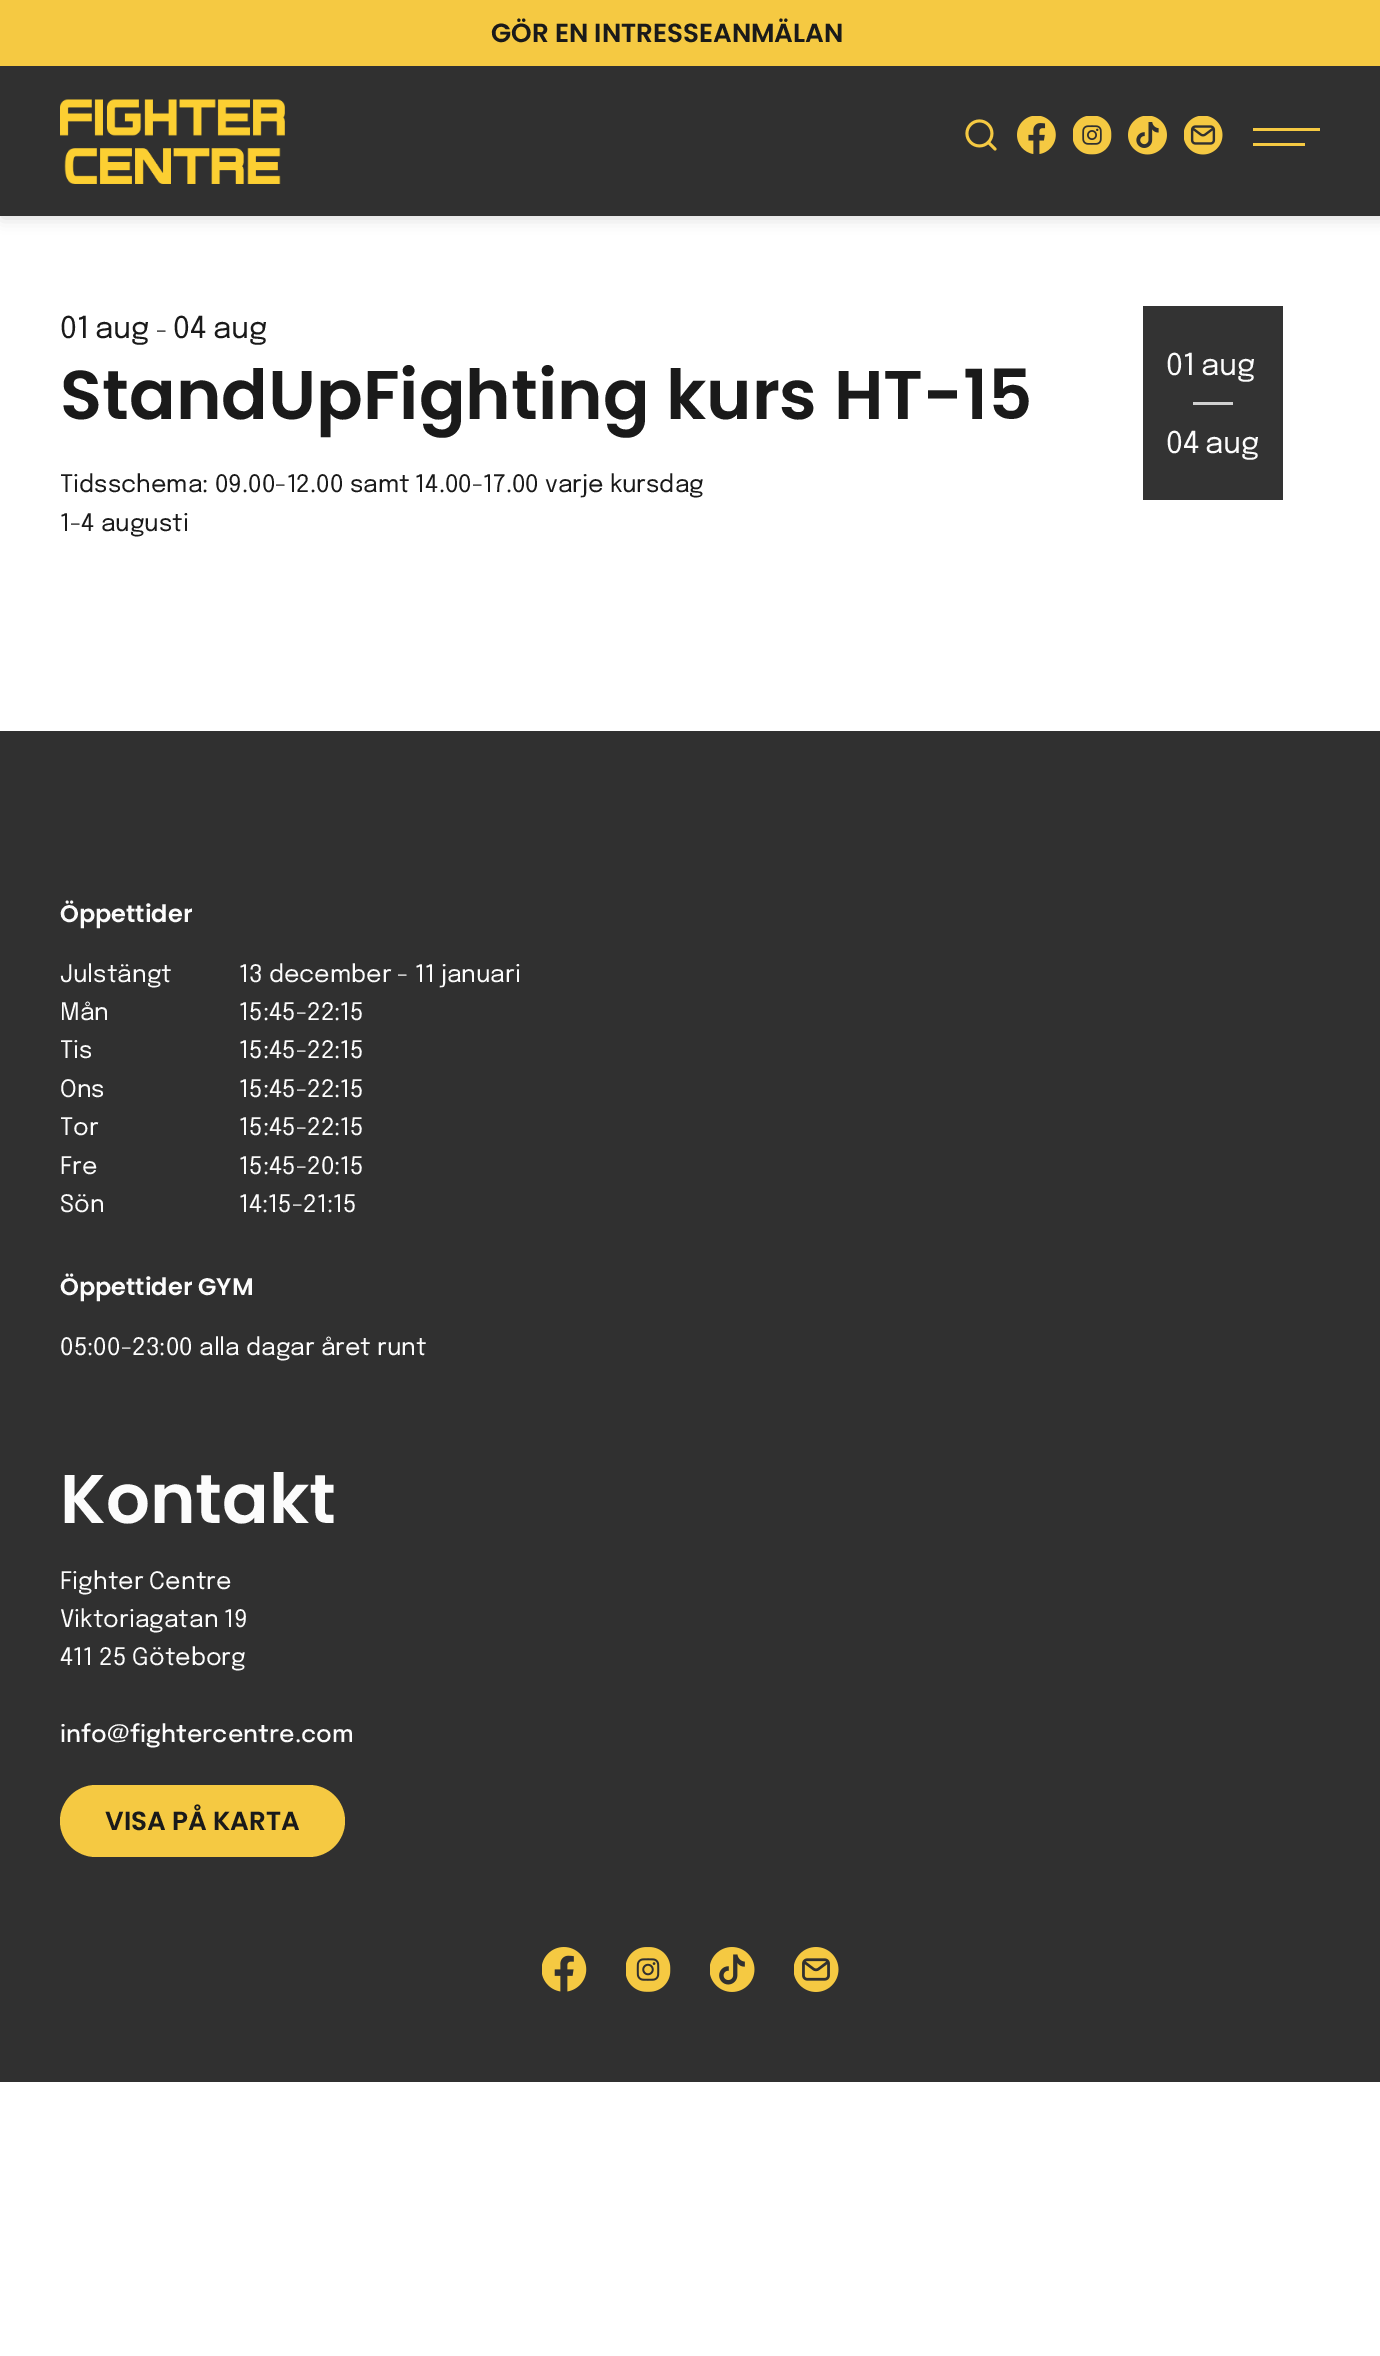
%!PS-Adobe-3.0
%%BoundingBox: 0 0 1380 2356
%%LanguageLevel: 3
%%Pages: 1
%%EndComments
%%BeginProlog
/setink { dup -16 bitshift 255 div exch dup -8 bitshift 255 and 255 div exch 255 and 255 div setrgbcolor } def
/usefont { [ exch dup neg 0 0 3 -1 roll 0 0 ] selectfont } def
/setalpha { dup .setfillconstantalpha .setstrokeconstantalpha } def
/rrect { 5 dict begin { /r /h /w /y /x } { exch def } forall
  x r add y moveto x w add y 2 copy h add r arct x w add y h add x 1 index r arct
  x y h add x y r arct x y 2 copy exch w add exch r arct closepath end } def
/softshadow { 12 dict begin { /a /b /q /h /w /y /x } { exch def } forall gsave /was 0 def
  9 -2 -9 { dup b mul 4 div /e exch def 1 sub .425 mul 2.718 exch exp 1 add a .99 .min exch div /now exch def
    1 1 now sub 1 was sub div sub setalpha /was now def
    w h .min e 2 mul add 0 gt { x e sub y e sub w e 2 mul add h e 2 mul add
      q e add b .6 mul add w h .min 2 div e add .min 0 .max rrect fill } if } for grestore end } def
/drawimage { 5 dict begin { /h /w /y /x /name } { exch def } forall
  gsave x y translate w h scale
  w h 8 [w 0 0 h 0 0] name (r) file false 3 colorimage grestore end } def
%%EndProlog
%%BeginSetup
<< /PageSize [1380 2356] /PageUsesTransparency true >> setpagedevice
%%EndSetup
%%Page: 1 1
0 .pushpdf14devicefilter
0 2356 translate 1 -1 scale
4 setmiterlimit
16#FFFFFF setink
0 0 1380 2356 rectfill
16#000000 setink
2 2 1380 216 0 7.5 0.15 softshadow
16#303030 setink
0 66 1380 150 rectfill
16#F5C942 setink
0 0 1380 66 rectfill
/Poppins-SemiBold 26.25 usefont
16#1A1A1A setink
491 42 moveto (GÖR EN INTRESSEANMÄLAN) show
(img1.raw) 60 99 225 85 drawimage
(img2.raw) 965 119 32 32 drawimage
(img3.raw) 1017 116 39 38 drawimage
(img4.raw) 1073 116 39 39 drawimage
(img5.raw) 1128 116 39 39 drawimage
(img6.raw) 1184 116 39 39 drawimage
16#F5C942 setink
1253 128 67 3 rectfill
1253 143 52 3 rectfill
/Epilogue-Regular 30 usefont
16#1A1A1A setink
60 338 moveto (01) show
95 338 moveto (aug) show
/Epilogue-Regular 24 usefont
156 338 moveto (-) show
/Epilogue-Regular 30 usefont
173 338 moveto (04) show
213 338 moveto (aug) show
/Poppins-SemiBold 69 usefont
60 419 moveto (StandUpFighting kurs HT-15) show
16#333333 setink
1143 306 140 194 rectfill
/Epilogue-Regular 30 usefont
16#FCFCFC setink
1166 375 moveto (01) show
1201 375 moveto (aug) show
16#D1D1D1 setink
1193 402 40 3 rectfill
16#FCFCFC setink
1166 453 moveto (04) show
1205 453 moveto (aug) show
/Epilogue-Regular 24 usefont
16#1A1A1A setink
60 492 moveto (Tidsschema: 09.00-12.00 samt 14.00-17.00 varje kursdag) show
60 531 moveto (1-4 augusti) show
16#303030 setink
0 731 1380 1351 rectfill
/Poppins-SemiBold 24 usefont
16#FCFCFC setink
60 922 moveto (Öppettider) show
/Epilogue-Regular 24 usefont
[
    [(Julstängt) 60 982]
    [(13 december - 11 januari) 239 982]
    [(Mån) 60 1020]
    [(15:45-22:15) 239 1020]
    [(Tis) 60 1058]
    [(15:45-22:15) 239 1058]
    [(Ons) 60 1097]
    [(15:45-22:15) 239 1097]
    [(Tor) 60 1135]
    [(15:45-22:15) 239 1135]
    [(Fre) 60 1174]
    [(15:45-20:15) 239 1174]
    [(Sön) 60 1212]
    [(14:15-21:15) 239 1212]
] { aload pop moveto show } forall
/Poppins-SemiBold 24 usefont
60 1295 moveto (Öppettider GYM) show
/Epilogue-Regular 24 usefont
60 1355 moveto (05:00-23:00 alla dagar året runt) show
/Poppins-SemiBold 69 usefont
60 1523 moveto (Kontakt) show
/Epilogue-Regular 24 usefont
[
    [(Fighter Centre) 60 1589]
    [(Viktoriagatan 19) 60 1627]
    [(411 25 Göteborg) 60 1665]
] { aload pop moveto show } forall
/Epilogue-Medium 24 usefont
60 1742 moveto (info@fightercentre.com) show
16#F5C942 setink
60 1785 285 72 36 rrect fill
/Poppins-SemiBold 26.25 usefont
16#1A1A1A setink
105 1830 moveto (VISA PÅ KARTA) show
(img7.raw) 542 1947 45 45 drawimage
(img8.raw) 626 1947 45 45 drawimage
(img9.raw) 710 1947 45 45 drawimage
(img10.raw) 794 1947 45 45 drawimage
.poppdf14devicefilter showpage
%%EOF
